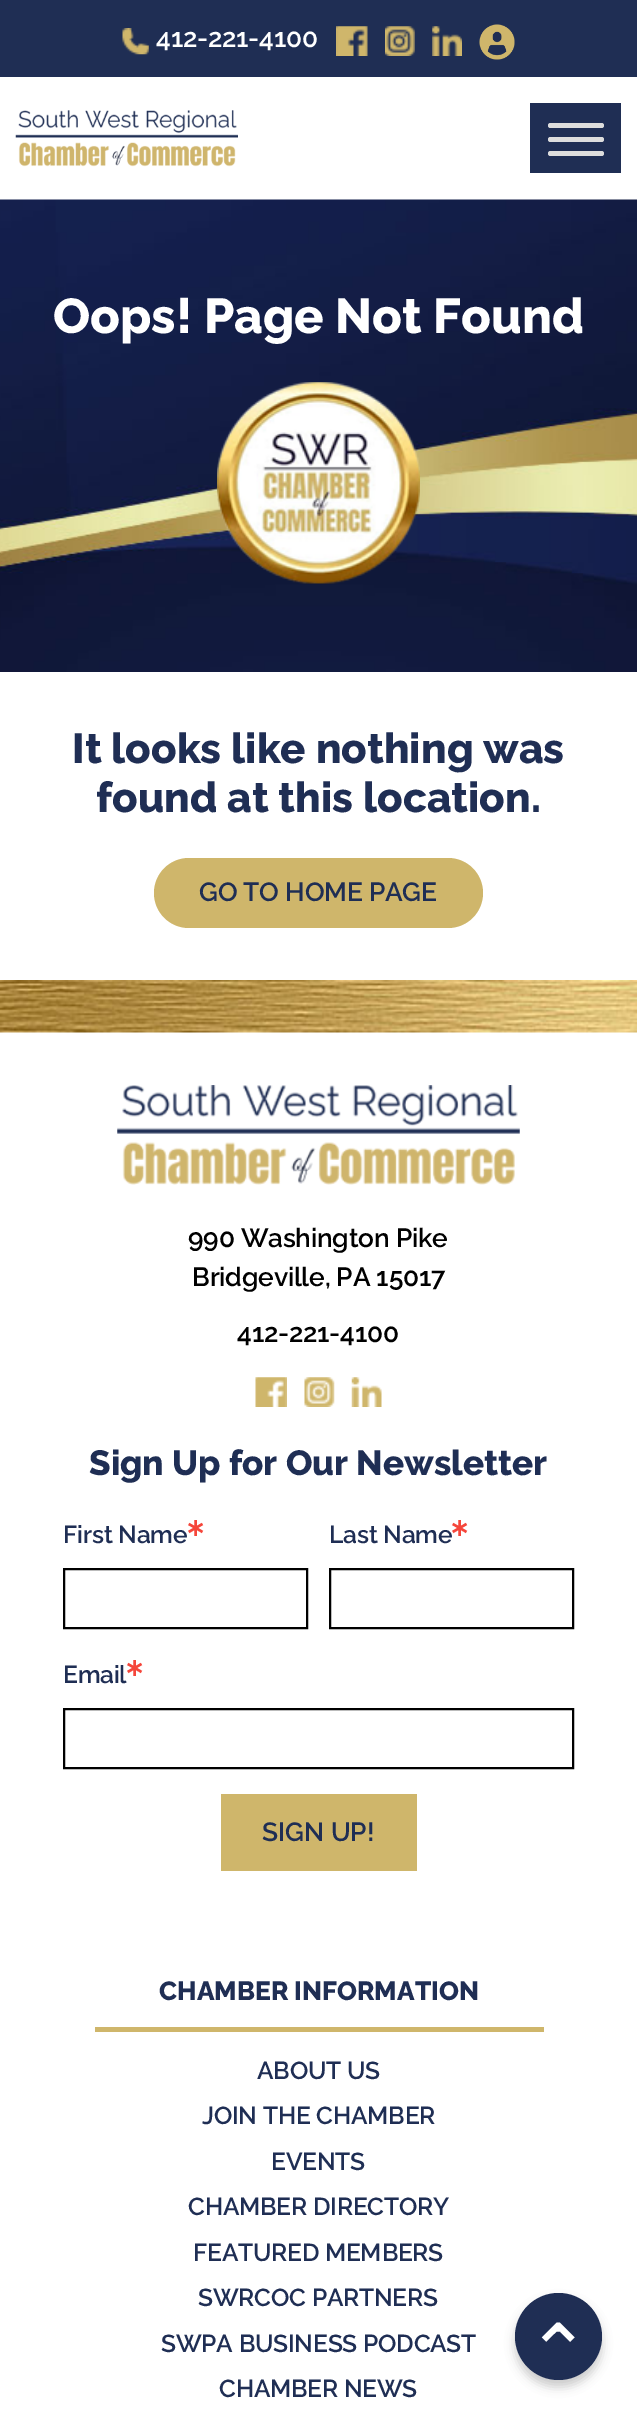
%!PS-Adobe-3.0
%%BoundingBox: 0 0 637 2415
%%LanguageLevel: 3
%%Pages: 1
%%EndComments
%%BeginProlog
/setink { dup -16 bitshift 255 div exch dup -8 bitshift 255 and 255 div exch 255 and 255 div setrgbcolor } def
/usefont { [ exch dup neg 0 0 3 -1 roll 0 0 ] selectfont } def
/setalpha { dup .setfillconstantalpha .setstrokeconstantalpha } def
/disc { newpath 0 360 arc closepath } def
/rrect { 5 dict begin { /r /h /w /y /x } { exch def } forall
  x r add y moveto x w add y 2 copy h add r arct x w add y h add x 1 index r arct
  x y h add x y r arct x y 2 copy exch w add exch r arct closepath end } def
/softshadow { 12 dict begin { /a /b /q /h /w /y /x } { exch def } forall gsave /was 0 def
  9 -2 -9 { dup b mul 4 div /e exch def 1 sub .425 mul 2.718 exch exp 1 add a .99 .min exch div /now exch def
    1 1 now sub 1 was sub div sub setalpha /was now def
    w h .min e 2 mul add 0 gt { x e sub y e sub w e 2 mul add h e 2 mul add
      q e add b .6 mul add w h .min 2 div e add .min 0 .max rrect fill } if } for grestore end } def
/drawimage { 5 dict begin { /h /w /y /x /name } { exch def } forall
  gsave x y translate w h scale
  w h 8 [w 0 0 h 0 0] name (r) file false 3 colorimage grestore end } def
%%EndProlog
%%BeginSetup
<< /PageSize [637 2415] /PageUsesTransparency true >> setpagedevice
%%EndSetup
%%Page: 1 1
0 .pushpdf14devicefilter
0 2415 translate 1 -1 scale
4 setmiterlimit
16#FFFFFF setink
0 0 637 2415 rectfill
16#1F2E54 setink
0 0 637 77 rectfill
(img1.raw) 122 28 27 27 drawimage
/Raleway-SemiBold 26.25 usefont
16#FFFFFF setink
156 47 moveto -0.2 0 (412-221-4100) ashow
(img2.raw) 336 26 32 30 drawimage
(img3.raw) 385 26 30 30 drawimage
(img4.raw) 432 26 30 30 drawimage
(img5.raw) 479 24 36 36 drawimage
(img6.raw) 15 110 223 57 drawimage
16#1F2E54 setink
530 103 91 70 rectfill
16#DDDDDD setink
548 123 56 5 2.5 rrect fill
548 137 56 5 2.5 rrect fill
548 151 56 5 2.5 rrect fill
16#000000 setink
515 2300 87 87 43.5 5 0.2 softshadow
16#1F2E54 setink
558.5 2336.5 43.5 disc fill
/DejaVuSans-Regular 77 usefont
16#FFFFFF setink
526 2379 moveto (⌃) show
(img7.raw) 0 199 637 473 drawimage
/Raleway-ExtraBold 49 usefont
53 333 moveto (Oops! Page Not Found) show
(img8.raw) 217 382 203 202 drawimage
/Raleway-ExtraBold 42 usefont
16#1F2E54 setink
72 763 moveto (It looks like nothing was) show
96 812 moveto (found at this location.) show
16#CFB66B setink
154 858 329 70 35 rrect fill
/Raleway-SemiBold 26.25 usefont
16#1F2E54 setink
199 901 moveto -0.2 0 (GO TO HOME PAGE) ashow
(img9.raw) 0 980 637 53 drawimage
(img10.raw) 117 1085 403 100 drawimage
16#000000 setink
188 1247 moveto -0.2 0 (990 Washington Pike) ashow
192 1286 moveto -0.2 0 (Bridgeville, PA 15017) ashow
237 1342 moveto -0.2 0 (412-221-4100) ashow
(img11.raw) 255 1377 32 30 drawimage
(img12.raw) 304 1377 31 30 drawimage
(img13.raw) 351 1377 31 30 drawimage
/Raleway-ExtraBold 35 usefont
16#1F2E54 setink
89 1475 moveto (Sign Up for Our Newsletter) show
/Raleway-SemiBold 24.5 usefont
63 1543 moveto -0.2 0 (First Name) ashow
/DejaVuSans-Bold 24.5 usefont
16#F5463B setink
185 1536 moveto -0.2 0 (∗) ashow
16#000000 setink
2 setlinewidth
64 1569 243 59 rectstroke
/Raleway-SemiBold 24.5 usefont
16#1F2E54 setink
329 1543 moveto -0.2 0 (Last Name) ashow
/DejaVuSans-Bold 24.5 usefont
16#F5463B setink
449 1536 moveto -0.2 0 (∗) ashow
16#000000 setink
330 1569 243 59 rectstroke
/Raleway-SemiBold 24.5 usefont
16#1F2E54 setink
63 1683 moveto -0.2 0 (Email) ashow
/DejaVuSans-Bold 24.5 usefont
16#F5463B setink
124 1676 moveto -0.2 0 (∗) ashow
16#000000 setink
64 1709 509 59 rectstroke
16#CFB66B setink
221 1794 196 77 rectfill
/Raleway-SemiBold 26.25 usefont
16#1F2E54 setink
262 1841 moveto (SIGN UP!) show
16#CFB66B setink
95 2027 449 5 rectfill
/Raleway-ExtraBold 26.25 usefont
16#1F2E54 setink
159 2000 moveto (CHAMBER INFORMATION) show
/Raleway-SemiBold 24.5 usefont
257 2079 moveto -0.2 0 (ABOUT US) ashow
202 2124 moveto -0.2 0 (JOIN THE CHAMBER) ashow
271 2170 moveto -0.2 0 (EVENTS) ashow
188 2215 moveto -0.2 0 (CHAMBER DIRECTORY) ashow
193 2261 moveto -0.2 0 (FEATURED MEMBERS) ashow
198 2306 moveto -0.2 0 (SWRCOC PARTNERS) ashow
161 2352 moveto -0.2 0 (SWPA BUSINESS PODCAST) ashow
219 2397 moveto -0.2 0 (CHAMBER NEWS) ashow
.poppdf14devicefilter showpage
%%EOF
